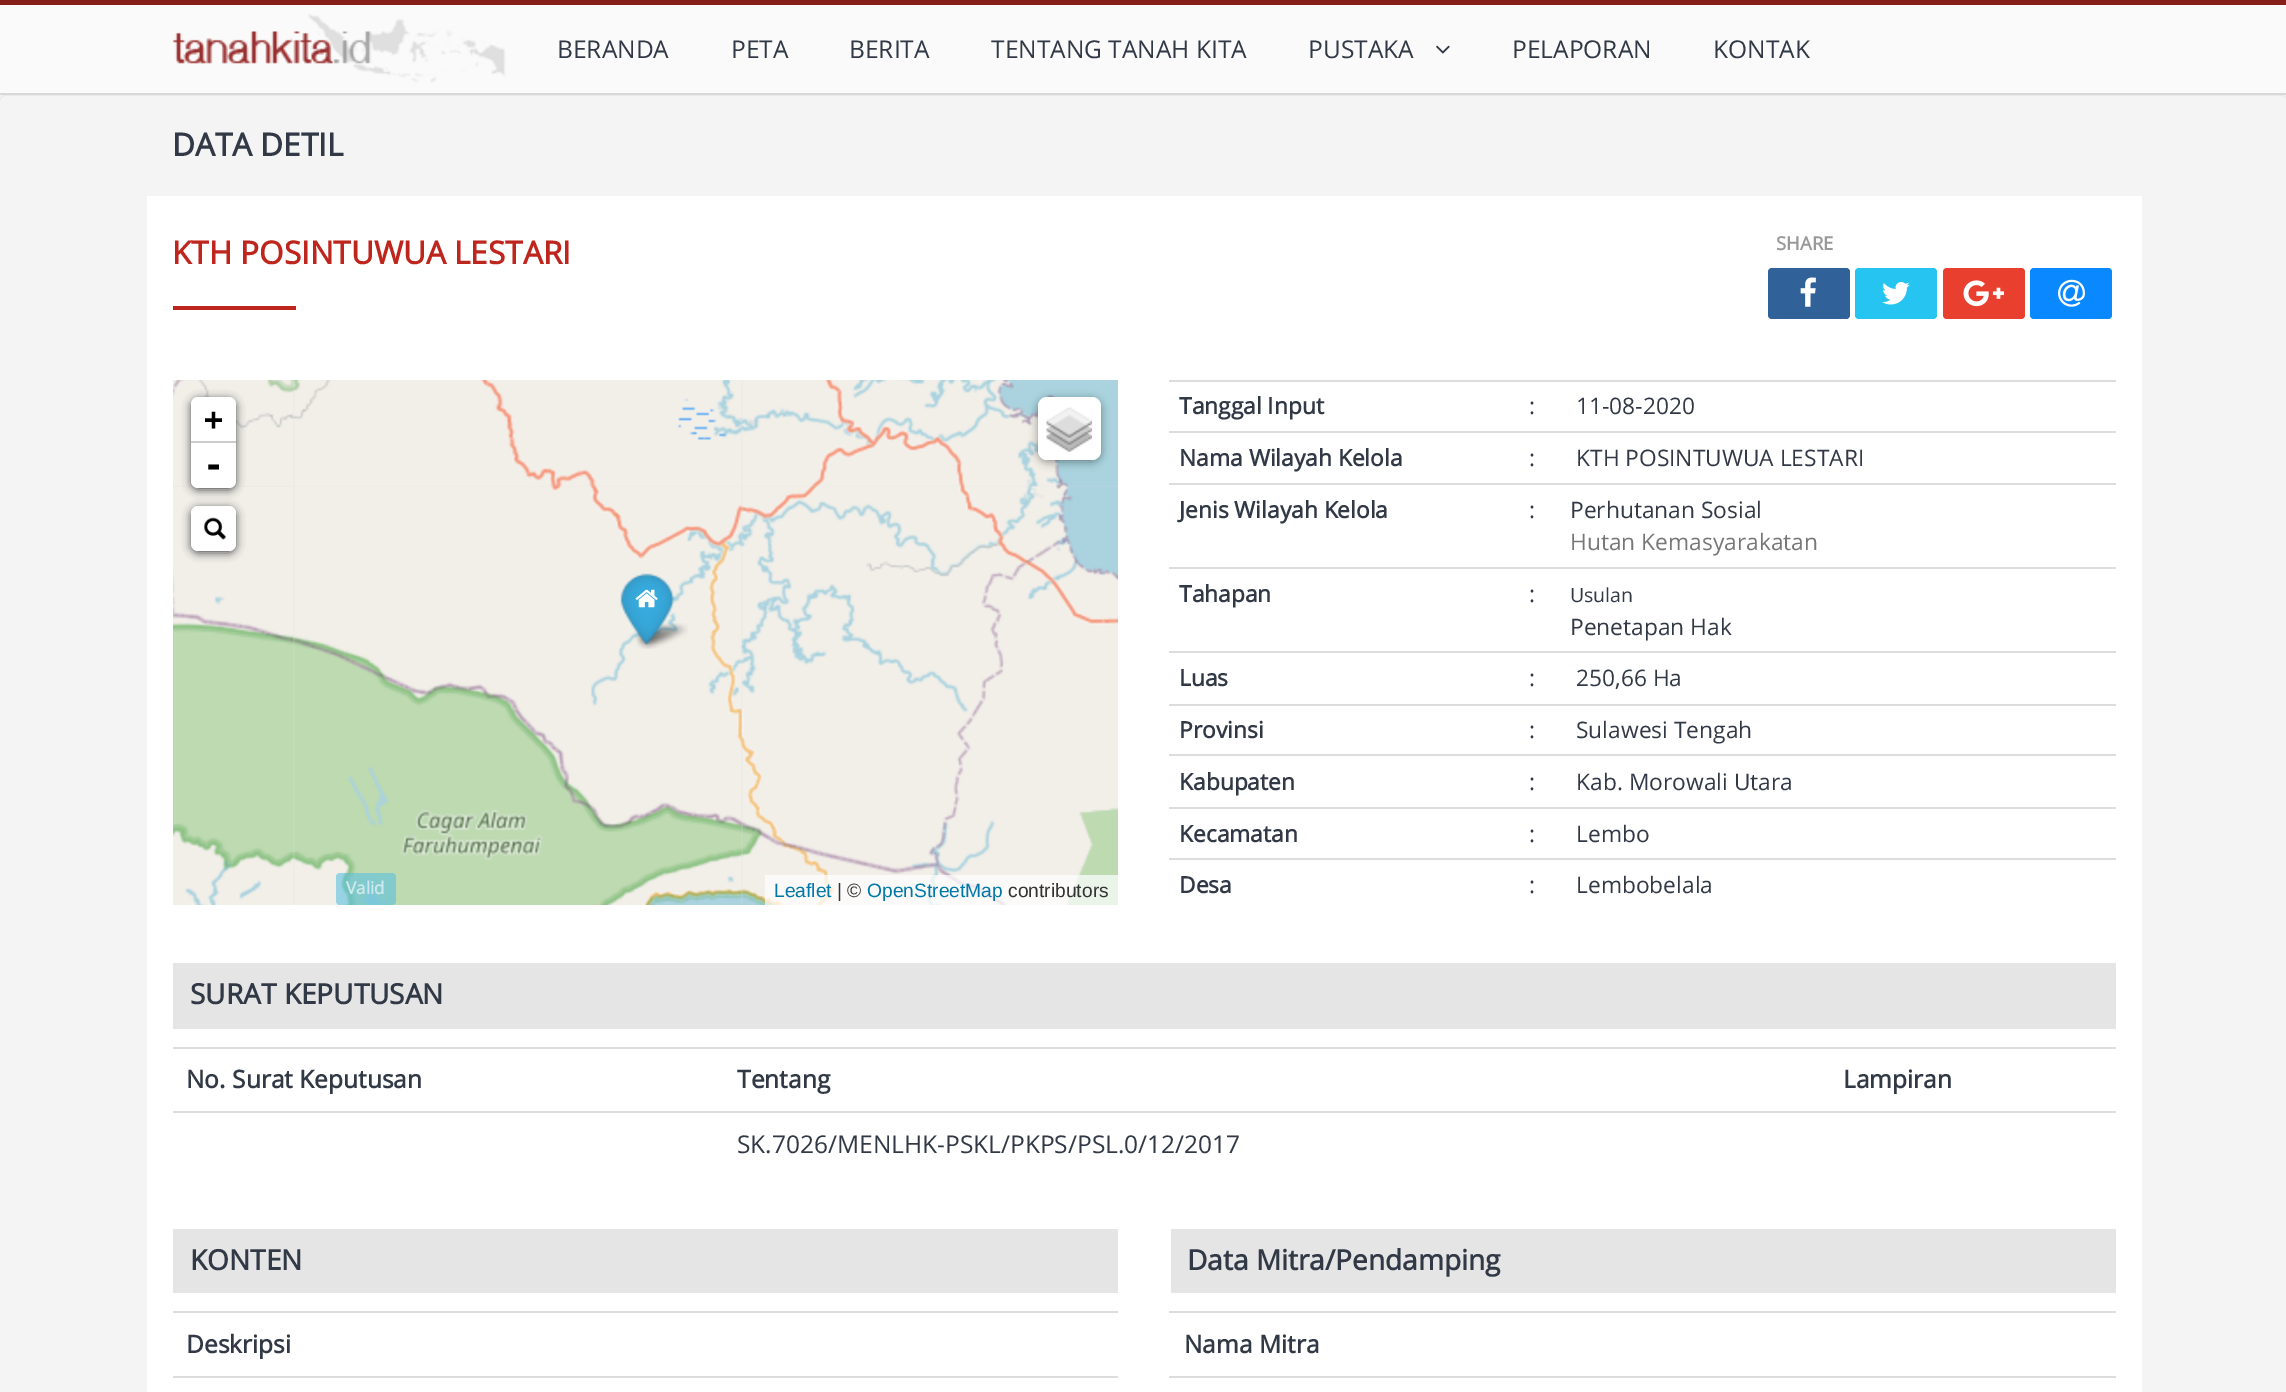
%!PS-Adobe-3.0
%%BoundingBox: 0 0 2286 1392
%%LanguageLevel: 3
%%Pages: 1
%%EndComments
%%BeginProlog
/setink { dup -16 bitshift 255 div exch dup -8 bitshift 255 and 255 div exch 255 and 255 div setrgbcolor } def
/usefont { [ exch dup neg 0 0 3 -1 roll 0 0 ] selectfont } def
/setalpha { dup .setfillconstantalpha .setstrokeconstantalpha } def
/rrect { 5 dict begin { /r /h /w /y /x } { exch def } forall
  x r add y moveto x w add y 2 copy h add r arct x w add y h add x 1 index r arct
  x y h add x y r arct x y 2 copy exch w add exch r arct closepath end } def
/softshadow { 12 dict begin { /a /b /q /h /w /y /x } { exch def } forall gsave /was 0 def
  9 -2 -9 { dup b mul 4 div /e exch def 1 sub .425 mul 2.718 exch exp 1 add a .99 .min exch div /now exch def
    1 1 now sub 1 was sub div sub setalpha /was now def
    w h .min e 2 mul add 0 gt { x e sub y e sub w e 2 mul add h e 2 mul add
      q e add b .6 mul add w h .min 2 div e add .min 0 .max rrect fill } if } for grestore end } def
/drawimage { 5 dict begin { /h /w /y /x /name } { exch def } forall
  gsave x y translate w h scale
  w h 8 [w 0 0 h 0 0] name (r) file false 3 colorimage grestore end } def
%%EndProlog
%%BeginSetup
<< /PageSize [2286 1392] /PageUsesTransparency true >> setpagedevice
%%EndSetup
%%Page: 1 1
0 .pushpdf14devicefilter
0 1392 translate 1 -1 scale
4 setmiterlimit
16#F4F4F4 setink
0 0 2286 1392 rectfill
[
    [0 5 2286 88 16#FAFAFA]
    [0 0 2286 5 16#861E19]
    [0 93 2286 2 16#D8D8D8]
] { aload pop setink rectfill } forall
(img1.raw) 172 14 334 69 drawimage
/OpenSans-Regular 24.5 usefont
16#323946 setink
[
    [(BERANDA) 557 58]
    [(PETA) 731 58]
    [(BERITA) 849 58]
    [(TENTANG TANAH KITA) 991 58]
    [(PUSTAKA) 1308 58]
] { aload pop moveto show } forall
(img2.raw) 1436 45 14 9 drawimage
1512 58 moveto (PELAPORAN) show
1713 58 moveto (KONTAK) show
16#E9E9E9 setink
5 96 moveto 2282 96 lineto 2285 96 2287 99 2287 102 curveto 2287 100 lineto 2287 97 2285 95 2282 95 curveto 5 95 lineto 2 95 0 97 0 100 curveto 0 102 lineto 0 99 2 96 5 96 curveto closepath fill
/OpenSans-Bold 31.5 usefont
16#323946 setink
172 156 moveto (DATA DETIL) show
16#FFFFFF setink
147 196 1995 1196 rectfill
16#BE251C setink
172 264 moveto (KTH POSINTUWUA LESTARI) show
173 306 123 4 rectfill
/OpenSans-Bold 18.5 usefont
16#999999 setink
1776 250 moveto (SHARE) show
16#306199 setink
1768 268 82 51 4 rrect fill
(img3.raw) 1800 277 16 30 drawimage
16#26C4F1 setink
1855 268 82 51 4 rrect fill
(img4.raw) 1882 282 28 23 drawimage
16#E93F2E setink
1943 268 82 51 4 rrect fill
(img5.raw) 1963 280 41 27 drawimage
16#0A88FF setink
2030 268 82 51 4 rrect fill
(img6.raw) 2058 279 27 28 drawimage
16#DDDDDD setink
173 380 945 525 rectfill
(img8.raw) 293 380 449 107 drawimage
(img11.raw) 293 485 449 420 drawimage
(img7.raw) 173 380 121 107 drawimage
(img9.raw) 741 380 377 107 drawimage
(img10.raw) 173 487 121 418 drawimage
(img12.raw) 741 485 377 420 drawimage
(img15.raw) 635 623 53 26 drawimage
(img13.raw) 620 573 55 72 drawimage
(img14.raw) 635 589 23 19 drawimage
16#000000 setink
191 399 45 91 7 4.5 0.65 softshadow
16#FFFFFF setink
198 397 moveto 229 397 lineto 233 397 236 400 236 404 curveto 236 443 lineto 191 443 lineto 191 404 lineto 191 400 194 397 198 397 curveto closepath fill
16#CCCCCC setink
191 441 45 2 rectfill
/DejaVuSansMono-Bold 31.5 usefont
16#000000 setink
204 430 moveto (+) show
16#FFFFFF setink
191 443 moveto 236 443 lineto 236 481 lineto 236 485 233 488 229 488 curveto 198 488 lineto 194 488 191 485 191 481 curveto closepath fill
/DejaVuSansMono-Bold 35 usefont
16#000000 setink
203 477 moveto (-) show
191 508 45 45 7 4.5 0.65 softshadow
16#FFFFFF setink
191 506 45 45 7 rrect fill
(img16.raw) 203 517 24 23 drawimage
16#000000 setink
1038 399 63 63 9 4.5 0.4 softshadow
16#FFFFFF setink
1038 397 63 63 9 rrect fill
(img17.raw) 1046 407 46 45 drawimage
0.7 setalpha
765 875 353 30 rectfill
/LiberationSans-Regular 19.25 usefont
1 setalpha
16#0078A8 setink
774 897 moveto (Leaflet) show
16#333333 setink
837 897 moveto (| ©) show
16#0078A8 setink
867 897 moveto (OpenStreetMap) show
16#333333 setink
1008 897 moveto (contributors) show
0.6 setalpha
16#5BC0DE setink
336 873 60 32 4 rrect fill
/OpenSans-Bold 17 usefont
1 setalpha
16#CCE9EB setink
346 894 moveto (Valid) show
/OpenSans-Bold 22.75 usefont
16#323946 setink
1179 414 moveto (Tanggal Input) show
/OpenSans-Regular 22.75 usefont
1529 414 moveto (:) show
16#DDDDDD setink
1169 380 947 2 rectfill
16#323946 setink
1576 414 moveto (11-08-2020) show
/OpenSans-Bold 22.75 usefont
1179 466 moveto (Nama Wilayah Kelola) show
/OpenSans-Regular 22.75 usefont
1529 466 moveto (:) show
16#DDDDDD setink
1169 431 947 2 rectfill
16#323946 setink
1576 466 moveto (KTH POSINTUWUA LESTARI) show
/OpenSans-Bold 22.75 usefont
1179 518 moveto (Jenis Wilayah Kelola) show
/OpenSans-Regular 22.75 usefont
1529 518 moveto (:) show
16#DDDDDD setink
1169 483 947 2 rectfill
16#323946 setink
1570 518 moveto (Perhutanan Sosial) show
16#777777 setink
1570 550 moveto (Hutan Kemasyarakatan) show
/OpenSans-Bold 22.75 usefont
16#323946 setink
1179 602 moveto (Tahapan) show
/OpenSans-Regular 22.75 usefont
1529 602 moveto (:) show
16#DDDDDD setink
1169 567 947 2 rectfill
/OpenSans-Regular 19.5 usefont
16#323946 setink
1570 602 moveto (Usulan) show
/OpenSans-Regular 22.75 usefont
1570 635 moveto (Penetapan Hak) show
/OpenSans-Bold 22.75 usefont
1179 686 moveto (Luas) show
/OpenSans-Regular 22.75 usefont
1529 686 moveto (:) show
16#DDDDDD setink
1169 651 947 2 rectfill
16#323946 setink
1576 686 moveto (250,66 Ha) show
/OpenSans-Bold 22.75 usefont
1179 738 moveto (Provinsi) show
/OpenSans-Regular 22.75 usefont
1529 738 moveto (:) show
16#DDDDDD setink
1169 704 947 2 rectfill
16#323946 setink
1576 738 moveto (Sulawesi Tengah) show
/OpenSans-Bold 22.75 usefont
1179 790 moveto (Kabupaten) show
/OpenSans-Regular 22.75 usefont
1529 790 moveto (:) show
16#DDDDDD setink
1169 754 947 2 rectfill
16#323946 setink
1576 790 moveto (Kab. Morowali Utara) show
/OpenSans-Bold 22.75 usefont
1179 842 moveto (Kecamatan) show
/OpenSans-Regular 22.75 usefont
1529 842 moveto (:) show
16#DDDDDD setink
1169 807 947 2 rectfill
16#323946 setink
1576 842 moveto (Lembo) show
/OpenSans-Bold 22.75 usefont
1179 893 moveto (Desa) show
/OpenSans-Regular 22.75 usefont
1529 893 moveto (:) show
16#DDDDDD setink
1169 858 947 2 rectfill
16#323946 setink
1576 893 moveto (Lembobelala) show
16#E5E5E5 setink
173 963 1943 66 rectfill
/OpenSans-Bold 28 usefont
16#323946 setink
190 1004 moveto (SURAT KEPUTUSAN) show
/OpenSans-Bold 24.5 usefont
186 1088 moveto (No. Surat Keputusan) show
737 1088 moveto (Tentang) show
16#DDDDDD setink
173 1047 1943 2 rectfill
16#323946 setink
1843 1088 moveto (Lampiran) show
16#DDDDDD setink
173 1111 1943 2 rectfill
/OpenSans-Regular 24.5 usefont
16#323946 setink
737 1153 moveto (SK.7026/MENLHK-PSKL/PKPS/PSL.0/12/2017) show
16#E5E5E5 setink
173 1229 945 64 rectfill
/OpenSans-Bold 28 usefont
16#323946 setink
190 1270 moveto (KONTEN) show
16#DDDDDD setink
173 1311 945 2 rectfill
/OpenSans-Bold 24.5 usefont
16#323946 setink
186 1353 moveto (Deskripsi) show
16#DDDDDD setink
173 1376 945 2 rectfill
16#E5E5E5 setink
1171 1229 945 64 rectfill
/OpenSans-Bold 28 usefont
16#323946 setink
1187 1270 moveto (Data Mitra/Pendamping) show
16#DDDDDD setink
1169 1311 947 2 rectfill
/OpenSans-Bold 24.5 usefont
16#323946 setink
1184 1353 moveto (Nama Mitra) show
16#DDDDDD setink
1169 1376 947 2 rectfill
.poppdf14devicefilter showpage
%%EOF
